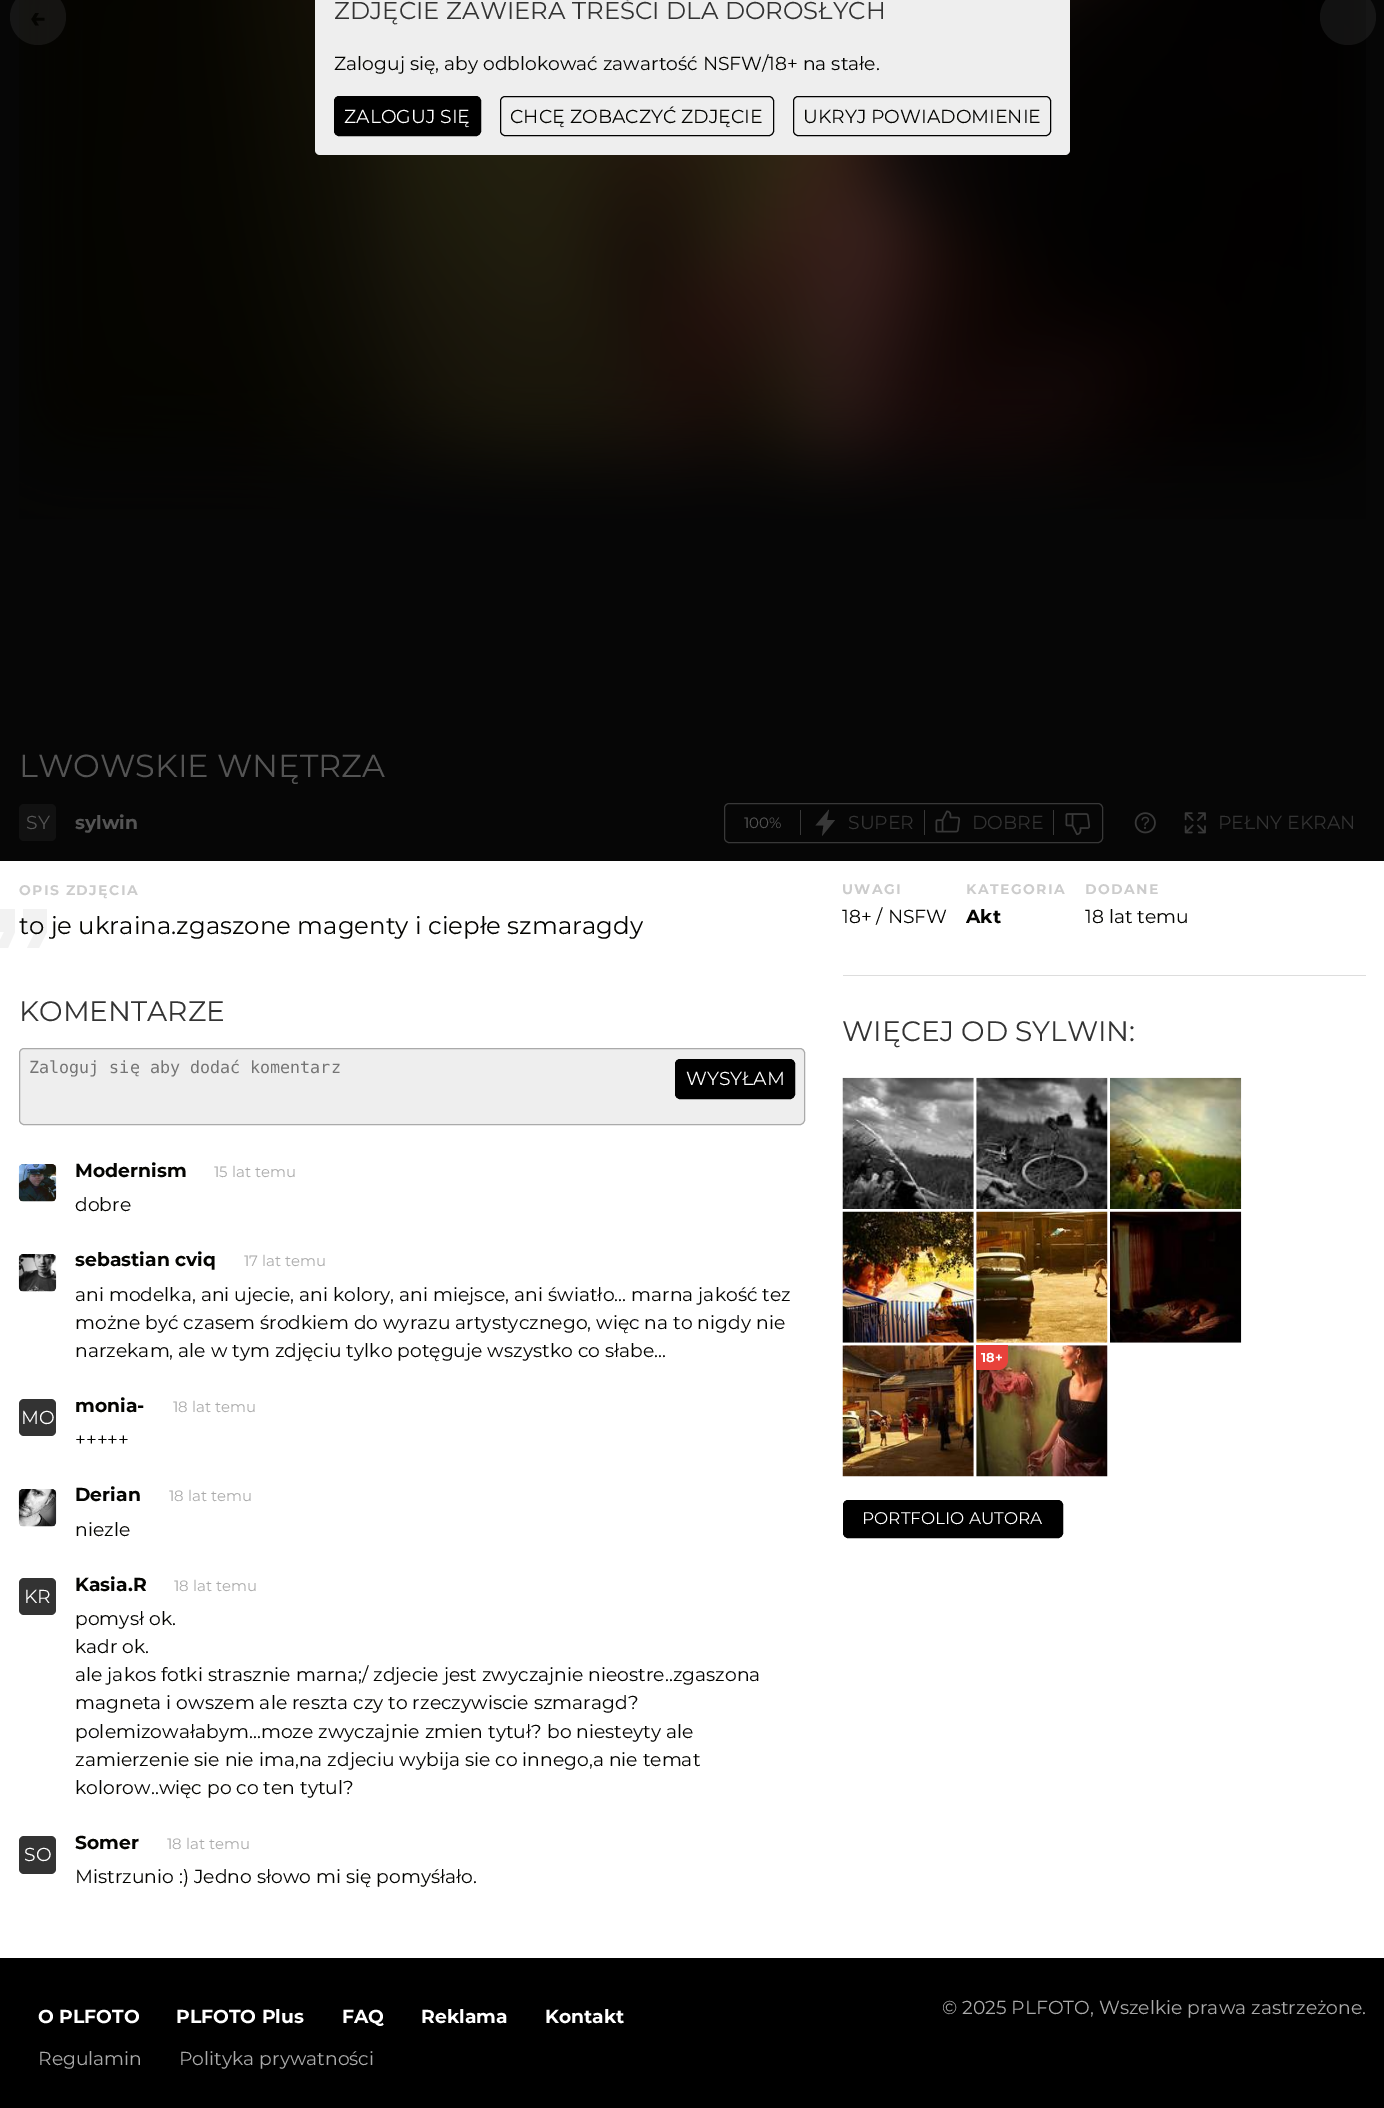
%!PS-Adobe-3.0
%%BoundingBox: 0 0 1384 2108
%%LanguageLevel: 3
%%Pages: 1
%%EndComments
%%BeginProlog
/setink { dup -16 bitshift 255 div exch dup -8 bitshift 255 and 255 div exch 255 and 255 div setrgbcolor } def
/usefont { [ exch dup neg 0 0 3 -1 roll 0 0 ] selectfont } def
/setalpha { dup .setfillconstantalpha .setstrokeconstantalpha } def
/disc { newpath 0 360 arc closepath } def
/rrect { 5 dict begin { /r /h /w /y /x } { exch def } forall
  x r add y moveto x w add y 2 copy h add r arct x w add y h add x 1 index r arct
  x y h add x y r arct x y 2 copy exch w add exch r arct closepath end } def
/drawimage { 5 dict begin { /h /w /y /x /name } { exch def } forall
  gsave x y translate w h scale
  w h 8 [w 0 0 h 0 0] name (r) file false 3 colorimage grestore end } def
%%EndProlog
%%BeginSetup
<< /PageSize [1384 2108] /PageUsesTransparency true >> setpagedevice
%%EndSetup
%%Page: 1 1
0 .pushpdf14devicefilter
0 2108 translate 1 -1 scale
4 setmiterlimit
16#FFFFFF setink
0 0 1384 2108 rectfill
16#060606 setink
0 0 1384 861 rectfill
(img1.raw) 19 0 1347 519 drawimage
0.2 setalpha
16#545454 setink
1348 17 28 disc fill
38 17 28 disc fill
/Montserrat-Bold 28.1 usefont
1 setalpha
16#040401 setink
29 27 moveto (←) show
16#EEEEEE setink
315 -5 755 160 5 rrect fill
/Montserrat-Regular 24.4 usefont
16#333333 setink
334 19 moveto (ZDJĘCIE ZAWIERA TREŚCI DLA DOROSŁYCH) show
/Montserrat-Regular 18.75 usefont
16#040401 setink
334 70 moveto (Zaloguj się, aby odblokować zawartość NSFW/18+ na stałe.) show
16#000000 setink
334.5 96.5 146 39 4.5 rrect gsave fill grestore
stroke
16#FFFFFF setink
344 123 moveto (ZALOGUJ SIĘ) show
16#000000 setink
500.5 96.5 273 39 4.5 rrect stroke
16#040401 setink
510 123 moveto (CHCĘ ZOBACZYĆ ZDJĘCIE) show
16#000000 setink
793.5 96.5 257 39 4.5 rrect stroke
16#040401 setink
803 123 moveto (UKRYJ POWIADOMIENIE) show
/Montserrat-Regular 31.9 usefont
16#545454 setink
19 777 moveto (LWOWSKIE WNĘTRZA) show
16#111111 setink
19 804 37 37 5 rrect fill
/Montserrat-Regular 18.75 usefont
16#545454 setink
26 829 moveto (SY) show
/Montserrat-Bold 18.75 usefont
75 829 moveto (sylwin) show
16#383838 setink
724.5 803.5 378 39 4.5 rrect stroke
/Montserrat-Regular 15 usefont
16#545454 setink
744 828 moveto (100%) show
16#383838 setink
800 810 1 25 rectfill
835 820 moveto 827 820 lineto 829 809.5 lineto 815.5 825.5 lineto 823.5 825.5 lineto 822 836 lineto closepath fill
/Montserrat-Regular 18.75 usefont
16#333333 setink
848 829 moveto (SUPER) show
16#383838 setink
924 810 1 25 rectfill
(img2.raw) 935 810 26 23 drawimage
16#333333 setink
972 829 moveto (DOBRE) show
16#383838 setink
1053 810 1 25 rectfill
(img3.raw) 1065 813 26 23 drawimage
(img4.raw) 1134 812 22 22 drawimage
(img5.raw) 1184 812 22 22 drawimage
16#333333 setink
1218 829 moveto (PEŁNY EKRAN) show
/Montserrat-Bold 14 usefont
16#CCCCCC setink
19 895 moveto 1.4 0 (OPIS ZDJĘCIA) ashow
0.05 setalpha
16#000000 setink
-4 948 moveto 8 948 lineto 15 932 lineto 15 909 lineto -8 909 lineto -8 932 lineto 4 932 lineto closepath 27 948 moveto 39 948 lineto 47 932 lineto 47 909 lineto 23 909 lineto 23 932 lineto 35 932 lineto closepath fill
/Montserrat-Regular 24.4 usefont
1 setalpha
16#040401 setink
19 934 moveto (to je ukraina.zgaszone magenty i ciepłe szmaragdy) show
/Montserrat-Regular 28.1 usefont
16#333333 setink
19 1021 moveto (KOMENTARZE) show
16#EEEEEE setink
19.5 1048.5 785 76 4.5 rrect gsave fill grestore
16#AAAAAA setink
stroke
/DejaVuSansMono-Regular 16.7 usefont
16#757575 setink
29 1073 moveto (Zaloguj się aby dodać komentarz) show
16#000000 setink
675.5 1059.5 119 39 4.5 rrect gsave fill grestore
stroke
/Montserrat-Regular 18.75 usefont
16#FFFFFF setink
686 1085 moveto (WYSYŁAM) show
(img6.raw) 18 1164 39 38 drawimage
/Montserrat-Bold 18.75 usefont
16#040401 setink
75 1177 moveto (Modernism) show
/Montserrat-Regular 15 usefont
16#AAAAAA setink
214 1177 moveto (15 lat temu) show
/Montserrat-Regular 18.75 usefont
16#040401 setink
75 1211 moveto (dobre) show
(img7.raw) 18 1254 39 38 drawimage
/Montserrat-Bold 18.75 usefont
75 1266 moveto (sebastian cviq) show
/Montserrat-Regular 15 usefont
16#AAAAAA setink
244 1266 moveto (17 lat temu) show
/Montserrat-Regular 18.75 usefont
16#040401 setink
[
    [(ani modelka, ani ujecie, ani kolory, ani miejsce, ani światło... marna jakość tez) 75 1301]
    [(możne być czasem środkiem do wyrazu artystycznego, więc na to nigdy nie) 75 1329]
    [(narzekam, ale w tym zdjęciu tylko potęguje wszystko co słabe...) 75 1357]
] { aload pop moveto show } forall
16#333333 setink
19 1399 37 37 5 rrect fill
16#FFFFFF setink
21 1424 moveto (MO) show
/Montserrat-Bold 18.75 usefont
16#040401 setink
75 1412 moveto (monia-) show
/Montserrat-Regular 15 usefont
16#AAAAAA setink
173 1412 moveto (18 lat temu) show
/Montserrat-Regular 18.75 usefont
16#040401 setink
75 1446 moveto (+++++) show
(img8.raw) 18 1489 39 38 drawimage
/Montserrat-Bold 18.75 usefont
75 1501 moveto (Derian) show
/Montserrat-Regular 15 usefont
16#AAAAAA setink
169 1501 moveto (18 lat temu) show
/Montserrat-Regular 18.75 usefont
16#040401 setink
75 1536 moveto (niezle) show
16#333333 setink
19 1578 37 37 5 rrect fill
16#FFFFFF setink
24 1603 moveto (KR) show
/Montserrat-Bold 18.75 usefont
16#040401 setink
75 1591 moveto (Kasia.R) show
/Montserrat-Regular 15 usefont
16#AAAAAA setink
174 1591 moveto (18 lat temu) show
/Montserrat-Regular 18.75 usefont
16#040401 setink
[
    [(pomysł ok.) 75 1625]
    [(kadr ok.) 75 1653]
    [(ale jakos fotki strasznie marna;/ zdjecie jest zwyczajnie nieostre..zgaszona) 75 1681]
    [(magneta i owszem ale reszta czy to rzeczywiscie szmaragd?) 75 1709]
    [(polemizowałabym...moze zwyczajnie zmien tytuł? bo niesteyty ale) 75 1738]
    [(zamierzenie sie nie ima,na zdjeciu wybija sie co innego,a nie temat) 75 1766]
    [(kolorow..więc po co ten tytul?) 75 1794]
] { aload pop moveto show } forall
16#333333 setink
19 1836 37 38 5 rrect fill
16#FFFFFF setink
24 1861 moveto (SO) show
/Montserrat-Bold 18.75 usefont
16#040401 setink
75 1849 moveto (Somer) show
/Montserrat-Regular 15 usefont
16#AAAAAA setink
167 1849 moveto (18 lat temu) show
/Montserrat-Regular 18.75 usefont
16#040401 setink
75 1883 moveto (Mistrzunio :\) Jedno słowo mi się pomyśłało.) show
/Montserrat-Bold 14 usefont
16#CCCCCC setink
842 894 moveto 1.4 0 (UWAGI) ashow
/Montserrat-Regular 18.75 usefont
16#040401 setink
842 923 moveto (18+ / NSFW) show
/Montserrat-Bold 14 usefont
16#CCCCCC setink
966 894 moveto 1.4 0 (KATEGORIA) ashow
/Montserrat-Bold 18.75 usefont
16#040401 setink
966 923 moveto (Akt) show
/Montserrat-Bold 14 usefont
16#CCCCCC setink
1085 894 moveto 1.4 0 (DODANE) ashow
/Montserrat-Regular 18.75 usefont
16#040401 setink
1085 923 moveto (18 lat temu) show
16#DDDDDD setink
843 975 523 1 rectfill
/Montserrat-Regular 28.1 usefont
16#333333 setink
842 1041 moveto (WIĘCEJ OD SYLWIN:) show
(img9.raw) 842 1077 132 132 drawimage
(img10.raw) 976 1077 132 132 drawimage
(img11.raw) 1110 1077 132 132 drawimage
(img12.raw) 842 1211 132 132 drawimage
/Montserrat-Regular 16.9 usefont
16#51403D setink
852 1323 moveto (Targ w) show
(img13.raw) 976 1211 132 132 drawimage
(img14.raw) 1110 1211 132 132 drawimage
(img15.raw) 842 1345 132 132 drawimage
(img16.raw) 976 1345 132 132 drawimage
16#E8423B setink
976 1345 moveto 1008 1345 lineto 1008 1360 lineto 1008 1365.5 1003.5 1370 998 1370 curveto 976 1370 lineto closepath fill
/Montserrat-Bold 13 usefont
16#FFFFFF setink
981 1362 moveto (18+) show
16#000000 setink
843.5 1500.5 219 37 4.5 rrect gsave fill grestore
stroke
/Montserrat-Regular 16.9 usefont
16#FFFFFF setink
862 1524 moveto (PORTFOLIO AUTORA) show
16#000000 setink
0 1958 1384 150 rectfill
/Montserrat-Bold 18.75 usefont
16#FFFFFF setink
[
    [(O PLFOTO) 38 2023]
    [(PLFOTO Plus) 176 2023]
    [(FAQ) 342 2023]
    [(Reklama) 421 2023]
    [(Kontakt) 545 2023]
] { aload pop moveto show } forall
/Montserrat-Regular 18.75 usefont
16#AAAAAA setink
[
    [(Regulamin) 38 2065]
    [(Polityka prywatności) 179 2065]
    [(© 2025 PLFOTO, Wszelkie prawa zastrzeżone.) 942 2014]
] { aload pop moveto show } forall
.poppdf14devicefilter showpage
%%EOF
